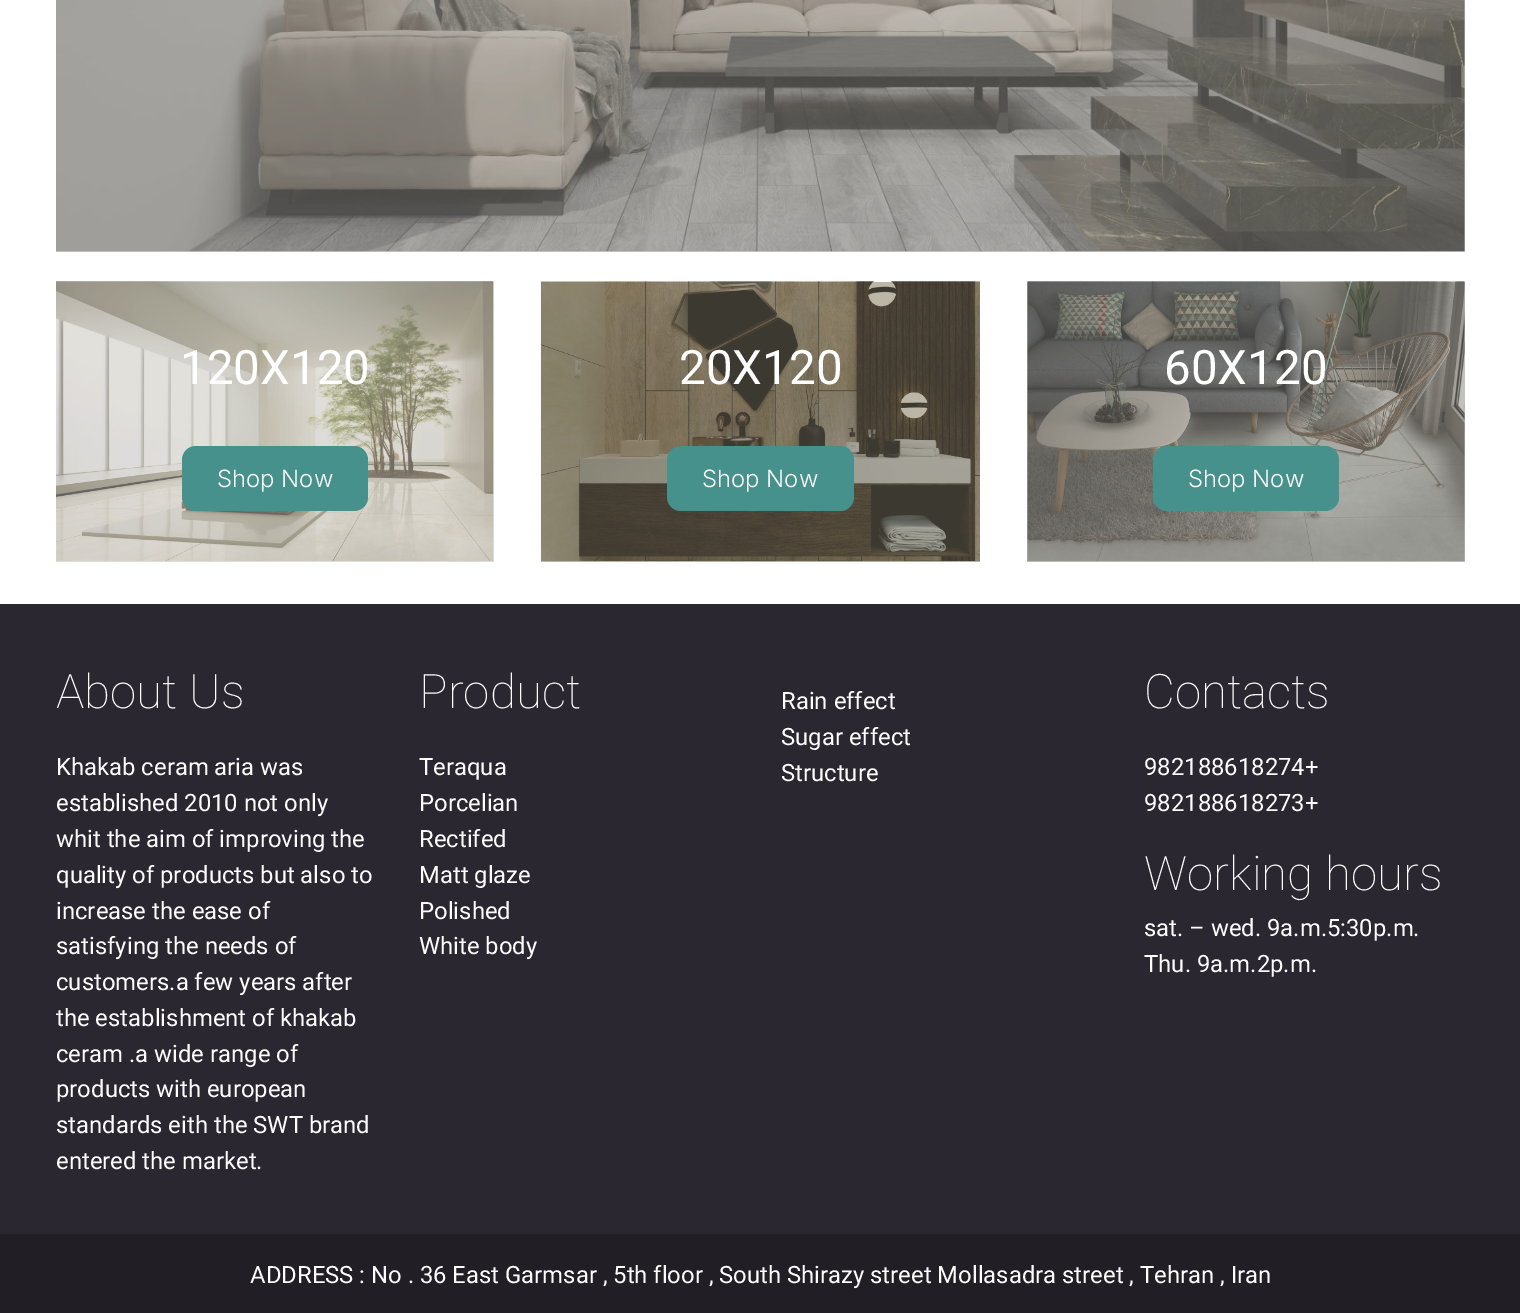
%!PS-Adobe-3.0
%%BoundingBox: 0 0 1520 1313
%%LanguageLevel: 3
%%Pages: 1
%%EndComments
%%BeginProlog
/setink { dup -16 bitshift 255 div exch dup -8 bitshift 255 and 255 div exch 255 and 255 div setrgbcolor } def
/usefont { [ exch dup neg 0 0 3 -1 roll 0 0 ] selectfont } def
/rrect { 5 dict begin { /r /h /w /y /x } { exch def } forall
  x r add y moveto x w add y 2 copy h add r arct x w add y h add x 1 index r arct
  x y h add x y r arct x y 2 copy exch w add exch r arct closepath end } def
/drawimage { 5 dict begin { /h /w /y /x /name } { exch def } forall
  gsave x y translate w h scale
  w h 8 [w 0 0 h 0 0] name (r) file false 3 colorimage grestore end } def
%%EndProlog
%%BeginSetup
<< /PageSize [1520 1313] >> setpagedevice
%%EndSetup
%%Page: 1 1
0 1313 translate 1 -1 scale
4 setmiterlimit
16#FFFFFF setink
0 0 1520 1313 rectfill
[
    [1027 282 438 280 16#C0C0BD]
    [541 561 439 1 16#BCB9B0]
    [56 282 438 280 16#E2E0DB]
    [56 0 1409 252 16#CBCAC7]
] { aload pop setink rectfill } forall
(img1.raw) 56 0 1409 252 drawimage
(img2.raw) 56 281 438 281 drawimage
/Roboto-Regular 47.5 usefont
16#FFFFFF setink
180 384 moveto (120X120) show
16#47918C setink
182 446 186 65 14 rrect fill
/Inter-Light 23.85 usefont
16#FFFFFF setink
217 487 moveto (Shop Now) show
(img3.raw) 540 281 440 281 drawimage
/Roboto-Regular 47.5 usefont
679 384 moveto (20X120) show
16#47918C setink
667 446 187 65 14 rrect fill
/Inter-Light 23.85 usefont
16#FFFFFF setink
702 487 moveto (Shop Now) show
(img4.raw) 1027 281 438 281 drawimage
/Roboto-Regular 47.5 usefont
1164 384 moveto (60X120) show
16#47918C setink
1153 446 186 65 14 rrect fill
/Inter-Light 23.85 usefont
16#FFFFFF setink
1188 487 moveto (Shop Now) show
16#2A2731 setink
0 604 1520 630 rectfill
/Roboto-Thin 47.5 usefont
16#FFFFFF setink
56 708 moveto (About Us) show
/Roboto-Regular 23.85 usefont
[
    [(Khakab ceram aria was) 56 775]
    [(established 2010 not only) 56 811]
    [(whit the aim of improving the) 56 847]
    [(quality of products but also to) 56 883]
    [(increase the ease of) 56 919]
    [(satisfying the needs of) 56 954]
    [(customers.a few years after) 56 990]
    [(the establishment of khakab) 56 1026]
    [(ceram .a wide range of) 56 1062]
    [(products with european) 56 1097]
    [(standards eith the SWT brand) 56 1133]
    [(entered the market.) 56 1169]
] { aload pop moveto show } forall
/Roboto-Thin 47.5 usefont
419 708 moveto (Product) show
/Roboto-Regular 23.85 usefont
[
    [(Teraqua) 419 775]
    [(Porcelian) 419 811]
    [(Rectifed) 419 847]
    [(Matt glaze) 419 883]
    [(Polished) 419 919]
    [(White body) 419 954]
    [(Rain effect) 781 709]
    [(Sugar effect) 781 745]
    [(Structure) 781 781]
] { aload pop moveto show } forall
/Roboto-Thin 47.5 usefont
1144 708 moveto (Contacts) show
/Roboto-Regular 23.85 usefont
1144 775 moveto (982188618274+) show
1144 811 moveto (982188618273+) show
/Roboto-Thin 47.5 usefont
1144 890 moveto (Working hours) show
/Roboto-Regular 23.85 usefont
1144 936 moveto (sat. – wed. 9a.m.5:30p.m.) show
1144 972 moveto (Thu. 9a.m.2p.m.) show
16#211F25 setink
0 1234 1520 79 rectfill
16#FFFFFF setink
250 1283 moveto (ADDRESS : No . 36 East Garmsar , 5th floor , South Shirazy street Mollasadra street , Tehran , Iran) show
showpage
%%EOF
